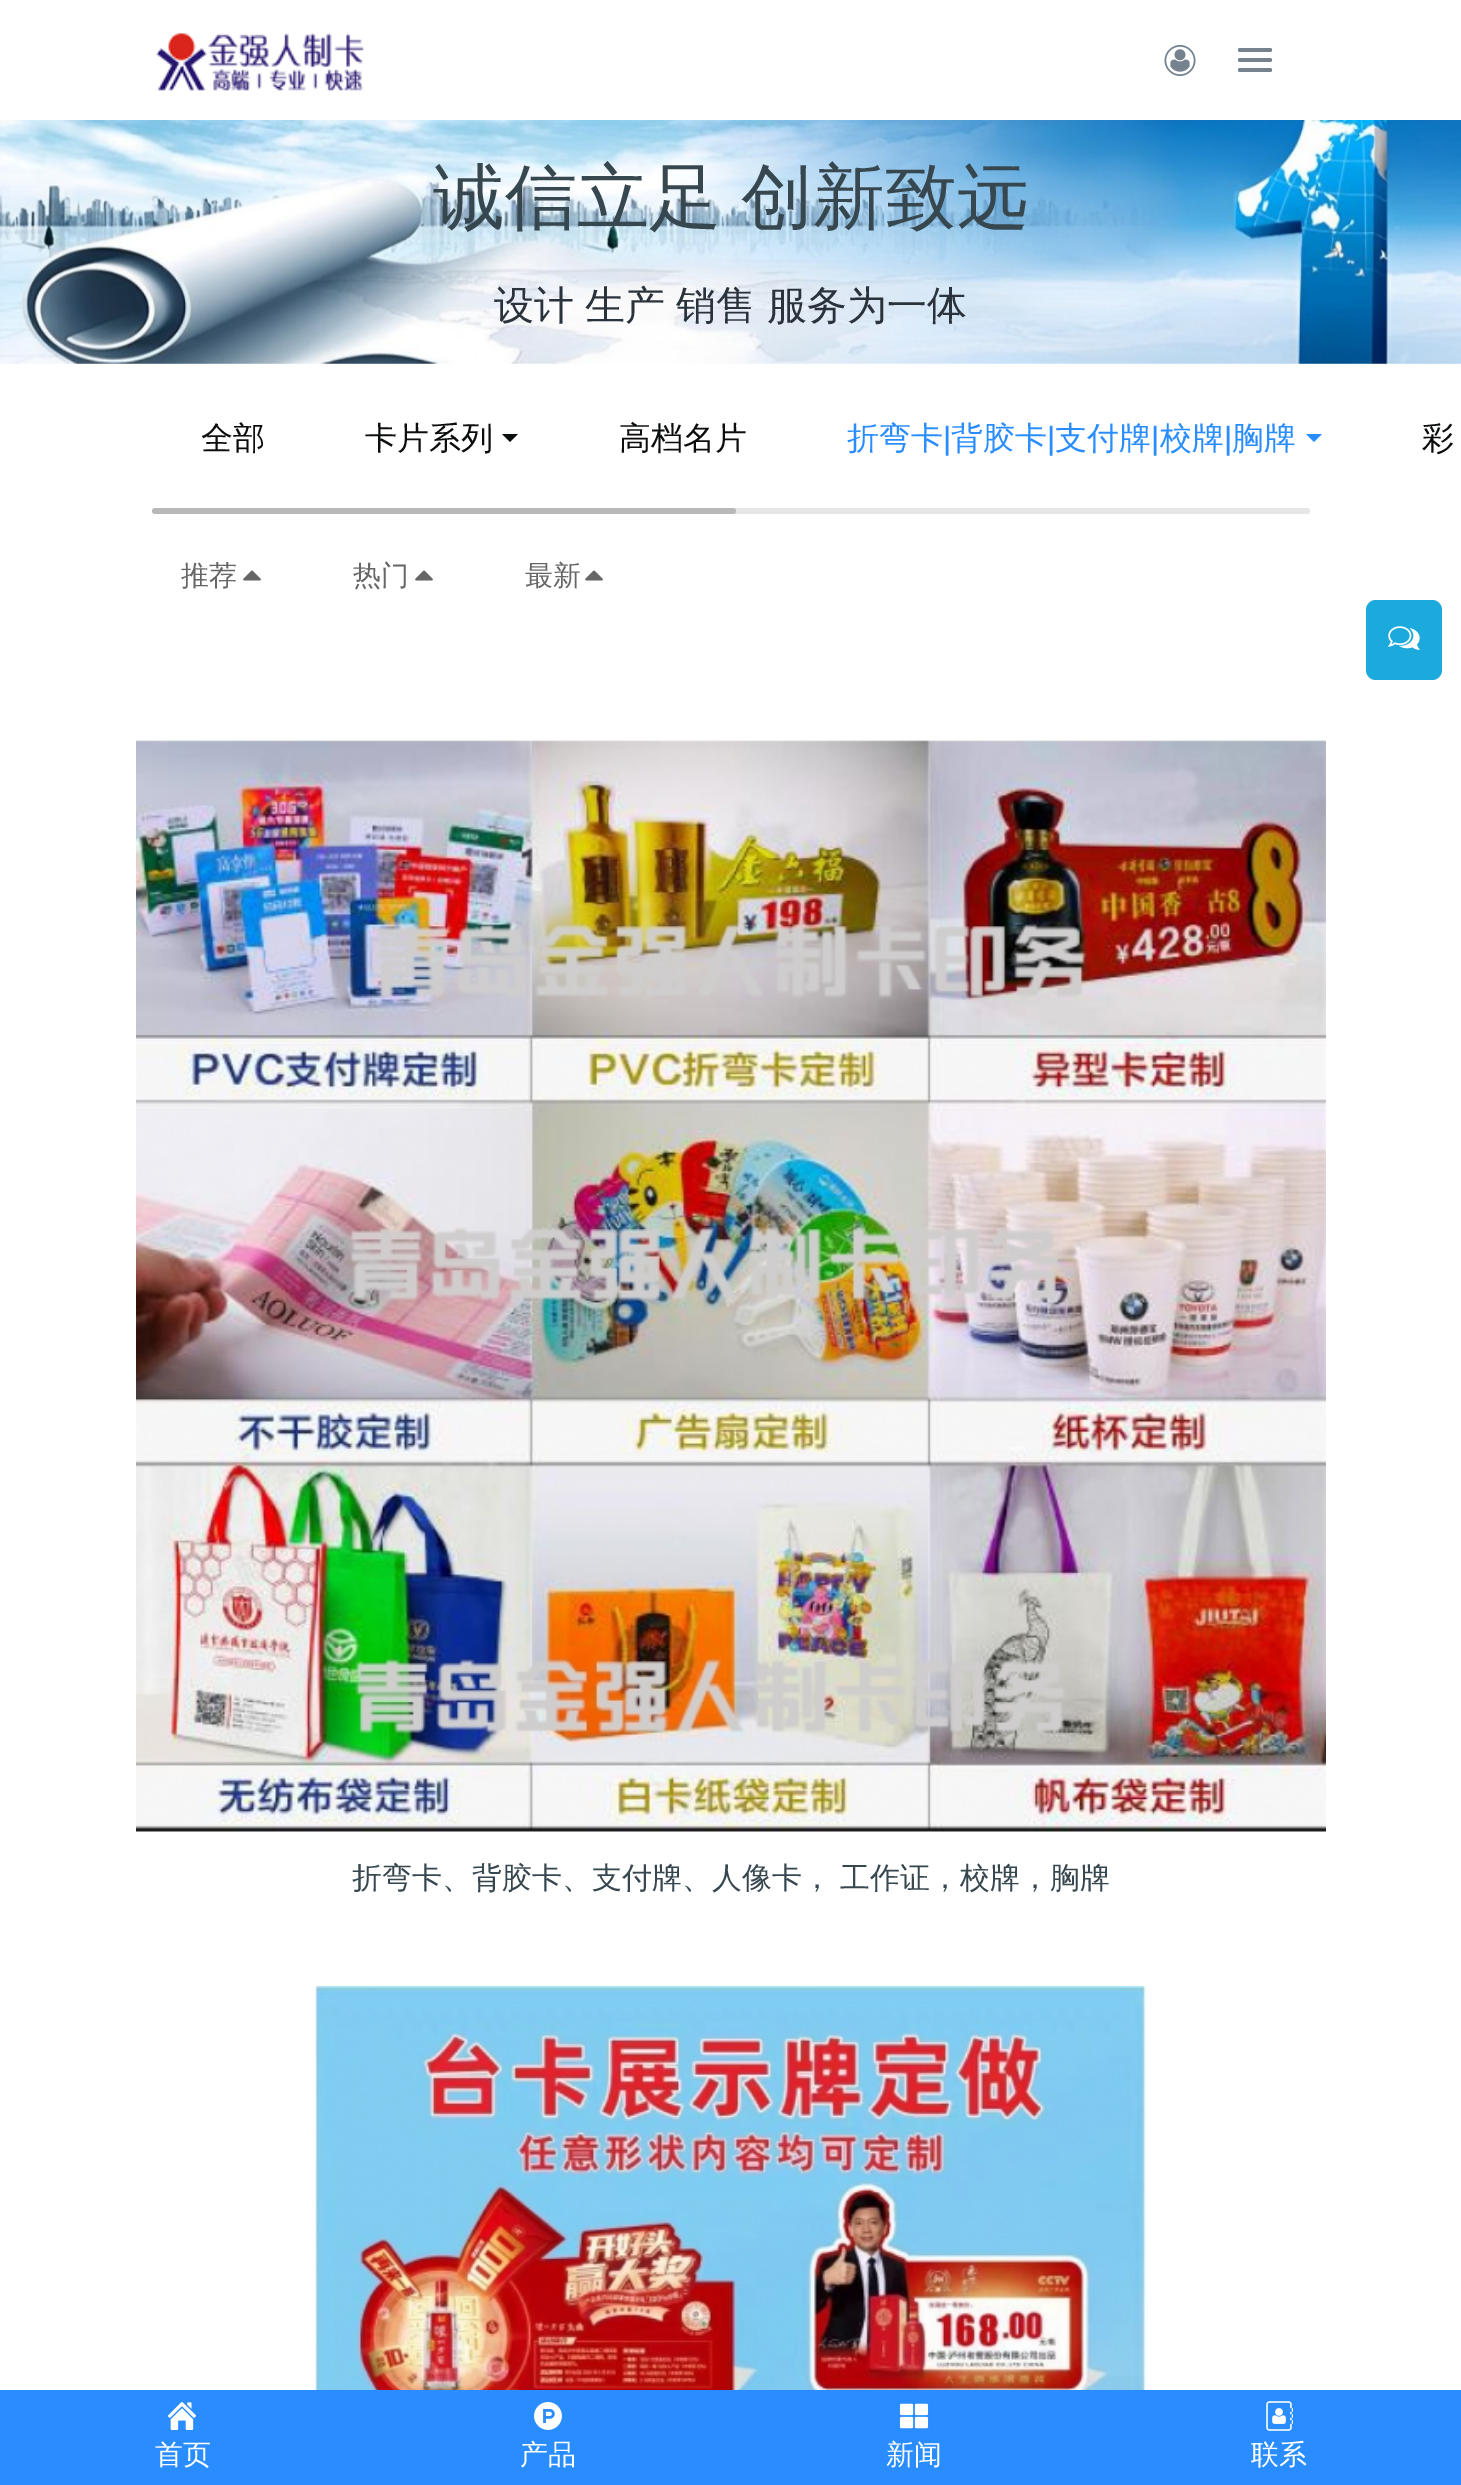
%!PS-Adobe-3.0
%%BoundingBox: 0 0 1461 2485
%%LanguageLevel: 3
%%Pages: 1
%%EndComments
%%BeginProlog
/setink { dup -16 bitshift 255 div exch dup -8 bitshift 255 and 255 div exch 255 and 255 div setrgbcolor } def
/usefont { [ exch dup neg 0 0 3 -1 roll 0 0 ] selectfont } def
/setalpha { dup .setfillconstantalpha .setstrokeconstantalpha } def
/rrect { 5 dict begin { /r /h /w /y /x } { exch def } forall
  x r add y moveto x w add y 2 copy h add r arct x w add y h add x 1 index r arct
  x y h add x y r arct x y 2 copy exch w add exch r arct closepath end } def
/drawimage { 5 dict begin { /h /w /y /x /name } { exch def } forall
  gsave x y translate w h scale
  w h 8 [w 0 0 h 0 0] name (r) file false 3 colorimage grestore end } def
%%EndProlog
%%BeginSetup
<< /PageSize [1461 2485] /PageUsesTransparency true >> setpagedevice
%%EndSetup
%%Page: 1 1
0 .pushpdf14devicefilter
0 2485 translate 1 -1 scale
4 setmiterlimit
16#FFFFFF setink
0 0 1461 2485 rectfill
(img1.raw) 156 33 208 58 drawimage
(img2.raw) 1164 45 32 31 drawimage
16#76838F setink
1238 48 34 4 2 rrect fill
1238 58 34 4 2 rrect fill
1238 68 34 4 2 rrect fill
(img3.raw) 0 120 1461 244 drawimage
/WenQuanYiZenHei-Medium 72 usefont
16#37474F setink
433 222 moveto -2 0 32 (诚信立足 创新致远) widthshow
/WenQuanYiZenHei-Medium 40 usefont
16#2A333C setink
494 319 moveto -1 0 32 (设计 生产 销售 服务为一体) widthshow
/WenQuanYiZenHei-Medium 32 usefont
16#0C0D0D setink
201 449 moveto (全部) show
365 449 moveto (卡片系列) show
502 434 moveto 518 434 lineto 510 442 lineto closepath fill
619 449 moveto (高档名片) show
16#298DFF setink
847 449 moveto (折弯卡) show
/LiberationSans-Regular 32 usefont
943 449 moveto (|) show
/WenQuanYiZenHei-Medium 32 usefont
951 449 moveto (背胶卡) show
/LiberationSans-Regular 32 usefont
1047 449 moveto (|) show
/WenQuanYiZenHei-Medium 32 usefont
1055 449 moveto (支付牌) show
/LiberationSans-Regular 32 usefont
1151 449 moveto (|) show
/WenQuanYiZenHei-Medium 32 usefont
1160 449 moveto (校牌) show
/LiberationSans-Regular 32 usefont
1224 449 moveto (|) show
/WenQuanYiZenHei-Medium 32 usefont
1232 449 moveto (胸牌) show
1306 434 moveto 1322 434 lineto 1314 442 lineto closepath fill
16#0C0D0D setink
1422 449 moveto (彩) show
16#E6E6E6 setink
152 508 1158 6 3 rrect fill
0.2 setalpha
16#000000 setink
152 508 584 6 3 rrect fill
/WenQuanYiZenHei-Medium 28 usefont
1 setalpha
16#666666 setink
181 585 moveto (推荐) show
(img4.raw) 243 570 18 11 drawimage
353 585 moveto (热门) show
(img4.raw) 415 570 18 11 drawimage
525 585 moveto (最新) show
(img4.raw) 585 570 18 11 drawimage
(img5.raw) 136 740 1190 1093 drawimage
/WenQuanYiZenHei-Medium 30 usefont
16#37474F setink
352 1888 moveto -1 0 32 (折弯卡、背胶卡、支付牌、人像卡， 工作证，校牌，胸牌) widthshow
(img6.raw) 314 1986 834 404 drawimage
16#298DFF setink
0 2390 1461 95 rectfill
(img7.raw) 168 2402 28 28 drawimage
/WenQuanYiZenHei-Medium 28 usefont
16#FFFFFF setink
155 2464 moveto (首页) show
(img8.raw) 534 2402 28 28 drawimage
520 2464 moveto (产品) show
(img9.raw) 899 2403 30 26 drawimage
886 2464 moveto (新闻) show
(img10.raw) 1266 2401 27 30 drawimage
1251 2464 moveto (联系) show
16#1BAADB setink
1366 600 76 80 10 rrect fill
(img11.raw) 1387 626 33 24 drawimage
.poppdf14devicefilter showpage
%%EOF
